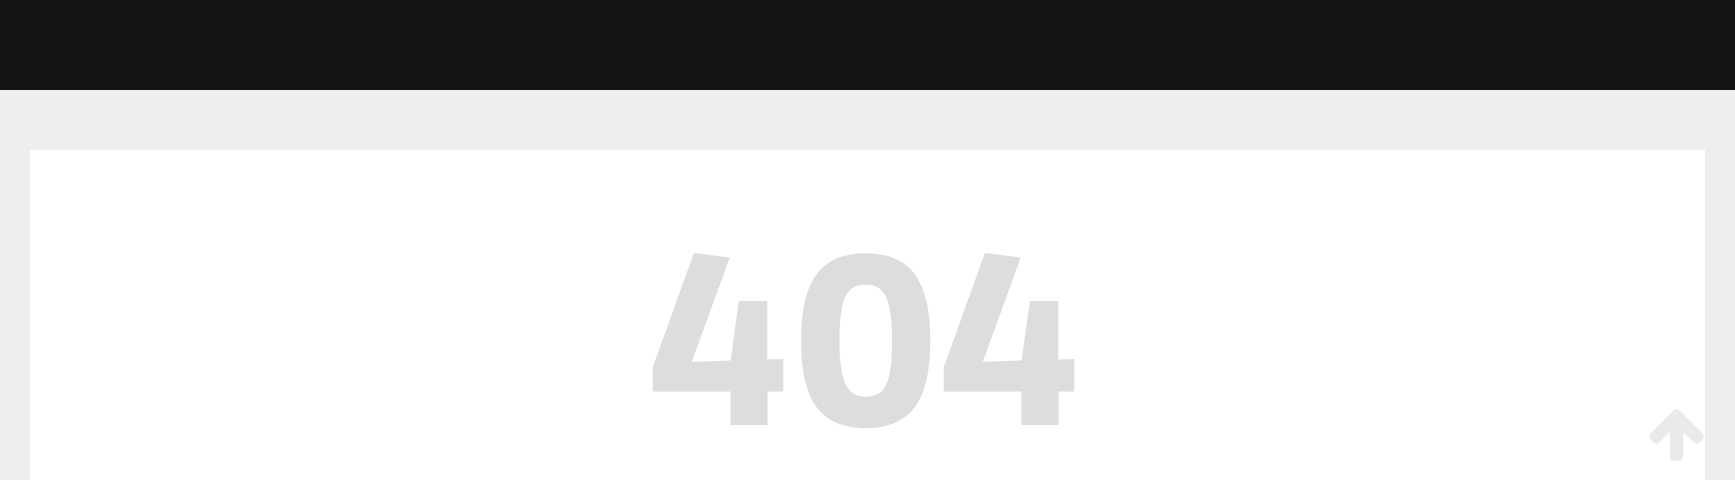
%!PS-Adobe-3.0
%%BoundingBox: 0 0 1735 480
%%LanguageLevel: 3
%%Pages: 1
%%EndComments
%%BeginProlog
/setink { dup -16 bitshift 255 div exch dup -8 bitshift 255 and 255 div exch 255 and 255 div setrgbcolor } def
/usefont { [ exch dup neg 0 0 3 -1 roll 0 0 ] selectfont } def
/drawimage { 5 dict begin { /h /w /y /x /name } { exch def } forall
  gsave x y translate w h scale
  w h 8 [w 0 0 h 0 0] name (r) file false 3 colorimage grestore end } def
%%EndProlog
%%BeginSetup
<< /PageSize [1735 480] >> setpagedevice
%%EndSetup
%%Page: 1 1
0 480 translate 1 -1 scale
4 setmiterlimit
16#EEEEEE setink
0 0 1735 480 rectfill
16#121416 setink
0 0 1735 90 rectfill
16#FFFFFF setink
30 150 1675 330 rectfill
/Ruda-Black 240 usefont
16#DDDDDD setink
651 425 moveto 2.5 0 (404) ashow
(img1.raw) 1649 409 55 52 drawimage
showpage
%%EOF
